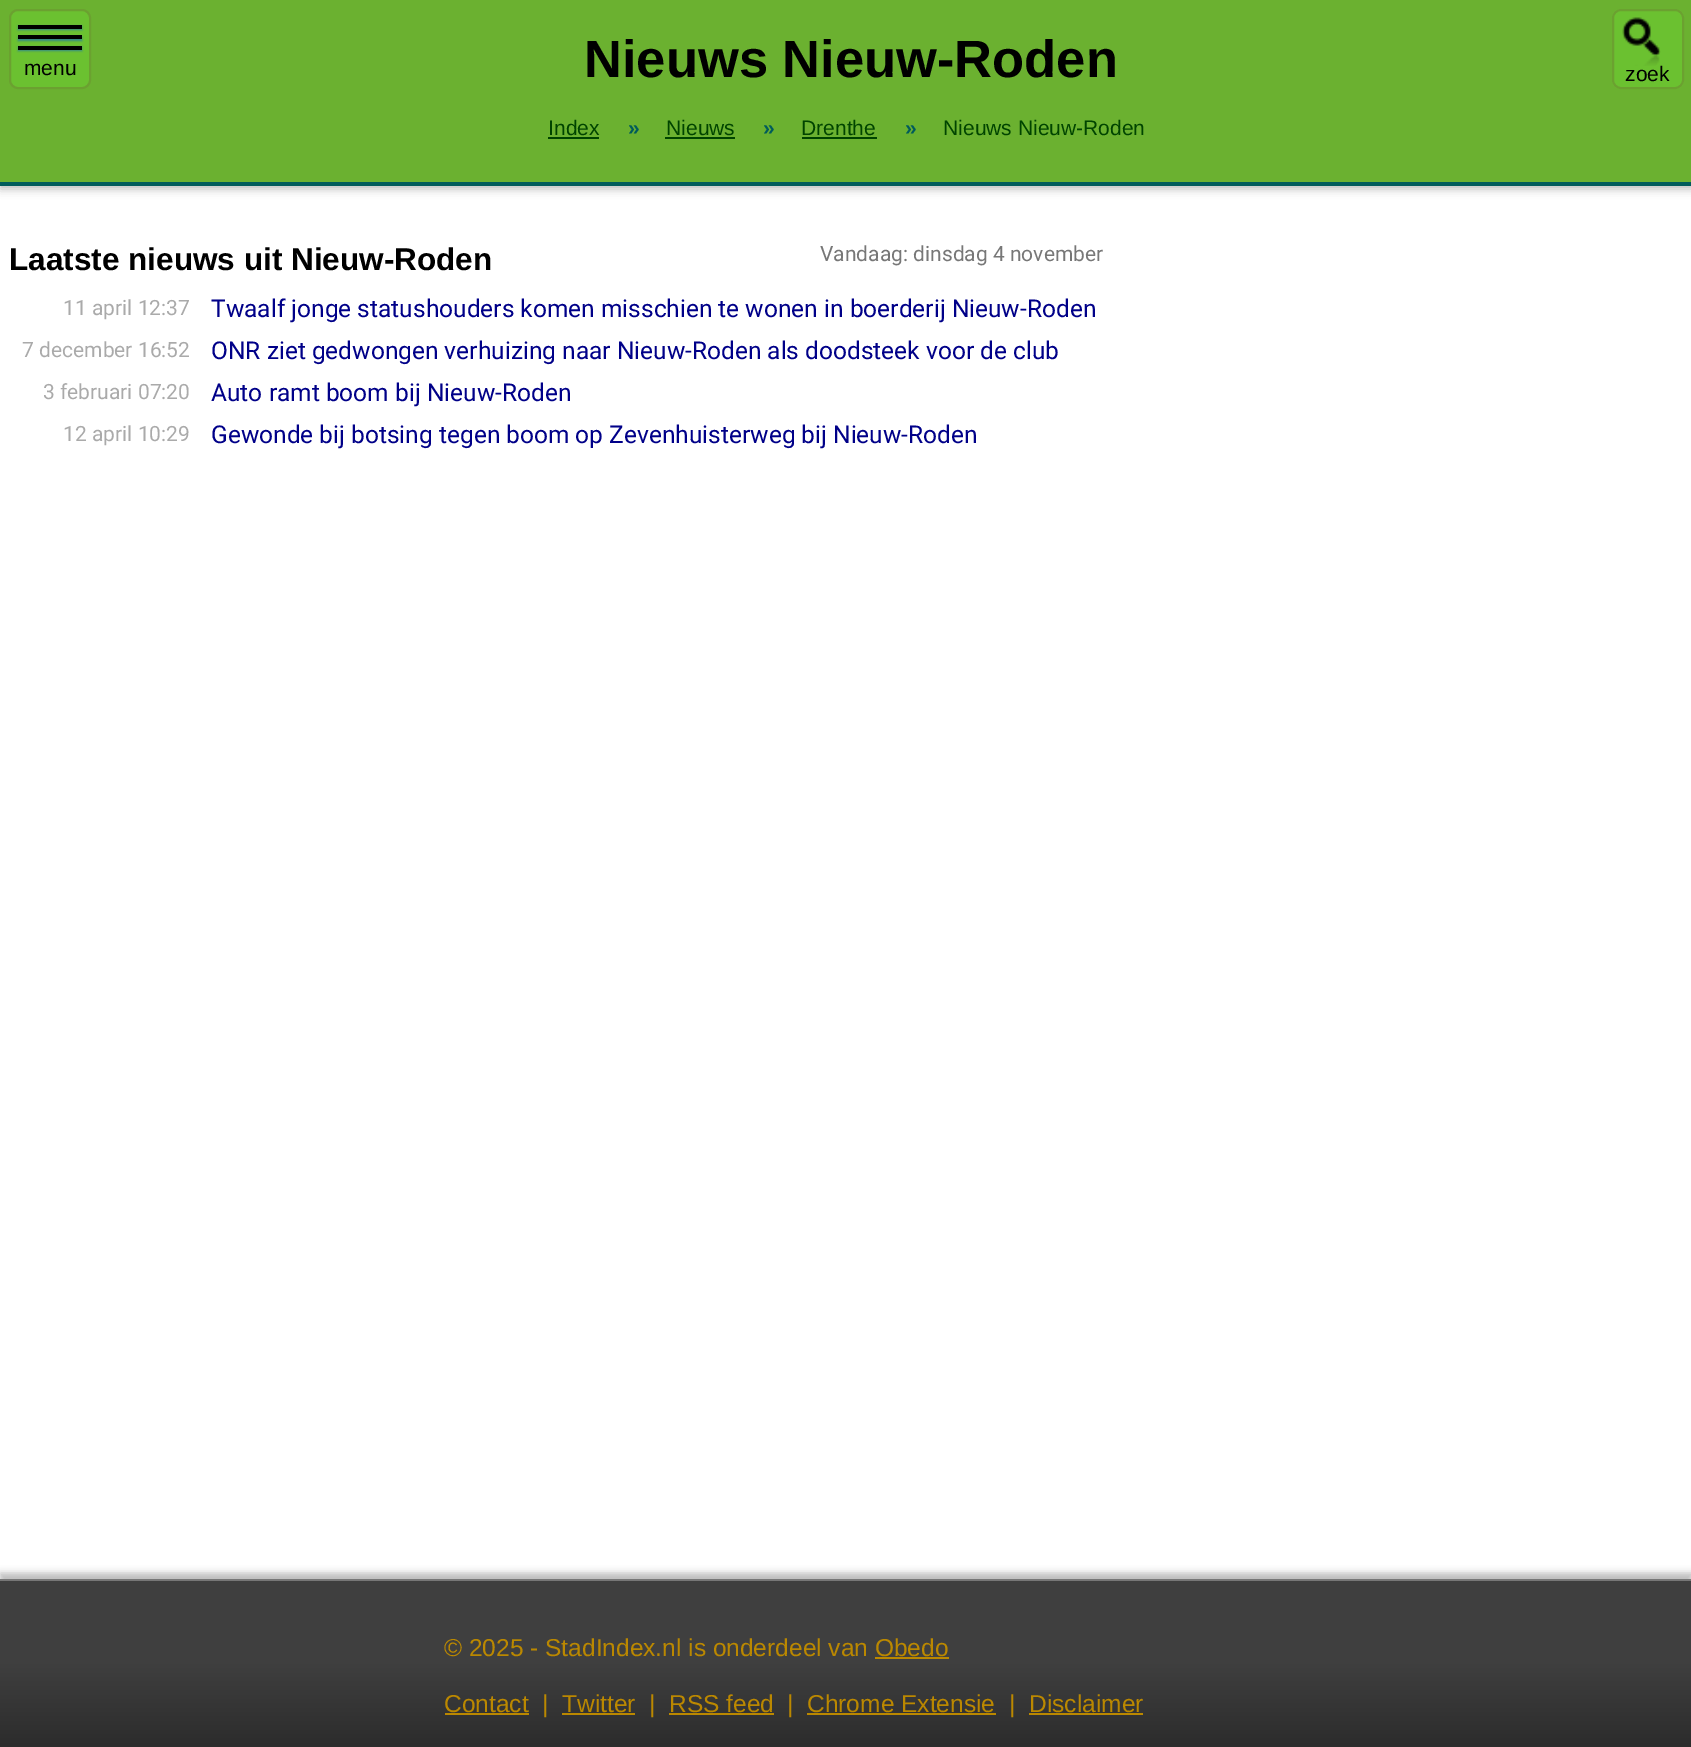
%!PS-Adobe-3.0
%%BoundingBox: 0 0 1691 1747
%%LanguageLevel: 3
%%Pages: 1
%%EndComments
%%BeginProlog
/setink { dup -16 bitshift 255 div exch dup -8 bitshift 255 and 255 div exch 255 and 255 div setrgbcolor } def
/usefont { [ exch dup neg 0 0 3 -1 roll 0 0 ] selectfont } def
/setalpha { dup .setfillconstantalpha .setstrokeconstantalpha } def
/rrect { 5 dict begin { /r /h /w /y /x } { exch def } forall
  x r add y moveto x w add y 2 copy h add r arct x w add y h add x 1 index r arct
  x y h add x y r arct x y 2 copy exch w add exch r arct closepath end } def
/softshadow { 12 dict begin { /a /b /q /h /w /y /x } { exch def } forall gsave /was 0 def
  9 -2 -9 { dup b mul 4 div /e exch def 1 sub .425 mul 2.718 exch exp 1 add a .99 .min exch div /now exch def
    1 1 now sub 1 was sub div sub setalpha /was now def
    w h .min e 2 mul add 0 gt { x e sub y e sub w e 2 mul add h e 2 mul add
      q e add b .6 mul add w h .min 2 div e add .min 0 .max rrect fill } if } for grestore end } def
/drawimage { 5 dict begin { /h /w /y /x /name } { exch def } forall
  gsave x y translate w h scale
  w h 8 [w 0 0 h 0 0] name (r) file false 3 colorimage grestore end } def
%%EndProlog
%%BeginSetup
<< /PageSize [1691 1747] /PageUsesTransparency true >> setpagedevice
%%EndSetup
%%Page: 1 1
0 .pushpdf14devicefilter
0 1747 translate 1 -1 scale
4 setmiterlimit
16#FFFFFF setink
0 0 1691 1747 rectfill
16#BBBBBB setink
0 4 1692 185 0 4.5 1 softshadow
16#6BB130 setink
0 0 1691 182 rectfill
16#005B5B setink
0 182 1691 4 rectfill
16#6BC130 setink
10 10 80 78 8 rrect gsave fill grestore
16#6BA130 setink
2 setlinewidth
stroke
16#338888 setink
18 26 64 4 0 1 1 softshadow
16#000000 setink
18 25 64 4 rectfill
16#338888 setink
18 37 64 4 0 1 1 softshadow
16#000000 setink
18 35 64 4 rectfill
16#338888 setink
18 47 64 4 0 1 1 softshadow
16#000000 setink
18 46 64 4 rectfill
/LiberationSans-Regular 21 usefont
24 75 moveto (menu) show
/LiberationSans-Bold 52.5 usefont
584 77 moveto (Nieuws Nieuw-Roden) show
/LiberationSans-Regular 21 usefont
16#004400 setink
548 135 moveto (Index) show
548 137 51 2 rectfill
/LiberationSans-Bold 21 usefont
16#005B5B setink
628 135 moveto (») show
/LiberationSans-Regular 21 usefont
16#004400 setink
666 135 moveto (Nieuws) show
665 137 70 2 rectfill
/LiberationSans-Bold 21 usefont
16#005B5B setink
763 135 moveto (») show
/LiberationSans-Regular 21 usefont
16#004400 setink
801 135 moveto (Drenthe) show
802 137 75 2 rectfill
/LiberationSans-Bold 21 usefont
16#005B5B setink
905 135 moveto (») show
/LiberationSans-Regular 21 usefont
16#004400 setink
943 135 moveto (Nieuws Nieuw-Roden) show
16#6BC130 setink
1612 9 72 80 9 rrect fill
(img1.raw) 1622 17 39 49 drawimage
16#6BA130 setink
1613 10 70 78 8 rrect stroke
16#000000 setink
1625 81 moveto (zoek) show
/LiberationSans-Bold 31.5 usefont
9 270 moveto (Laatste nieuws uit Nieuw-Roden) show
/Roboto-Regular 21 usefont
16#777777 setink
820 261 moveto (Vandaag: dinsdag 4 november) show
16#AAAAAA setink
63 315 moveto (11 april 12:37) show
/Roboto-Regular 24.5 usefont
16#000088 setink
211 317 moveto (Twaalf jonge statushouders komen misschien te wonen in boerderij Nieuw-Roden) show
/Roboto-Regular 21 usefont
16#AAAAAA setink
22 357 moveto (7 december 16:52) show
/Roboto-Regular 24.5 usefont
16#000088 setink
211 359 moveto (ONR ziet gedwongen verhuizing naar Nieuw-Roden als doodsteek voor de club) show
/Roboto-Regular 21 usefont
16#AAAAAA setink
43 399 moveto (3 februari 07:20) show
/Roboto-Regular 24.5 usefont
16#000088 setink
211 401 moveto (Auto ramt boom bij Nieuw-Roden) show
/Roboto-Regular 21 usefont
16#AAAAAA setink
63 441 moveto (12 april 10:29) show
/Roboto-Regular 24.5 usefont
16#000088 setink
211 443 moveto (Gewonde bij botsing tegen boom op Zevenhuisterweg bij Nieuw-Roden) show
16#BBBBBB setink
0 1573 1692 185 0 3.5 1 softshadow
gsave 0 1581 moveto 1691 1581 lineto 1691 1747 lineto 0 1747 lineto closepath clip newpath
<< /ShadingType 2 /ColorSpace /DeviceRGB /Coords [846 1580 846 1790] /Extend [true true] /Function << /FunctionType 3 /Domain [0 1] /Functions [<< /FunctionType 2 /Domain [0 1] /C0 [0.247 0.247 0.247] /C1 [0.247 0.247 0.247] /N 1 >> << /FunctionType 2 /Domain [0 1] /C0 [0.247 0.247 0.247] /C1 [0.133 0.133 0.133] /N 1 >>] /Bounds [0.4] /Encode [0 1 0 1] >> >> shfill grestore
16#777777 setink
0 1579 1691 2 rectfill
/LiberationSans-Regular 24.5 usefont
16#BB8800 setink
444 1656 moveto (© 2025 - StadIndex.nl is onderdeel van Obedo) show
875 1657 74 2 rectfill
444 1712 moveto (Contact) show
445 1713 84 2 rectfill
542 1712 moveto (|) show
562 1712 moveto (Twitter) show
562 1713 73 2 rectfill
649 1712 moveto (|) show
669 1712 moveto (RSS feed) show
669 1713 105 2 rectfill
787 1712 moveto (|) show
807 1712 moveto (Chrome Extensie) show
807 1713 189 2 rectfill
1009 1712 moveto (|) show
1029 1712 moveto (Disclaimer) show
1029 1713 114 2 rectfill
.poppdf14devicefilter showpage
%%EOF
